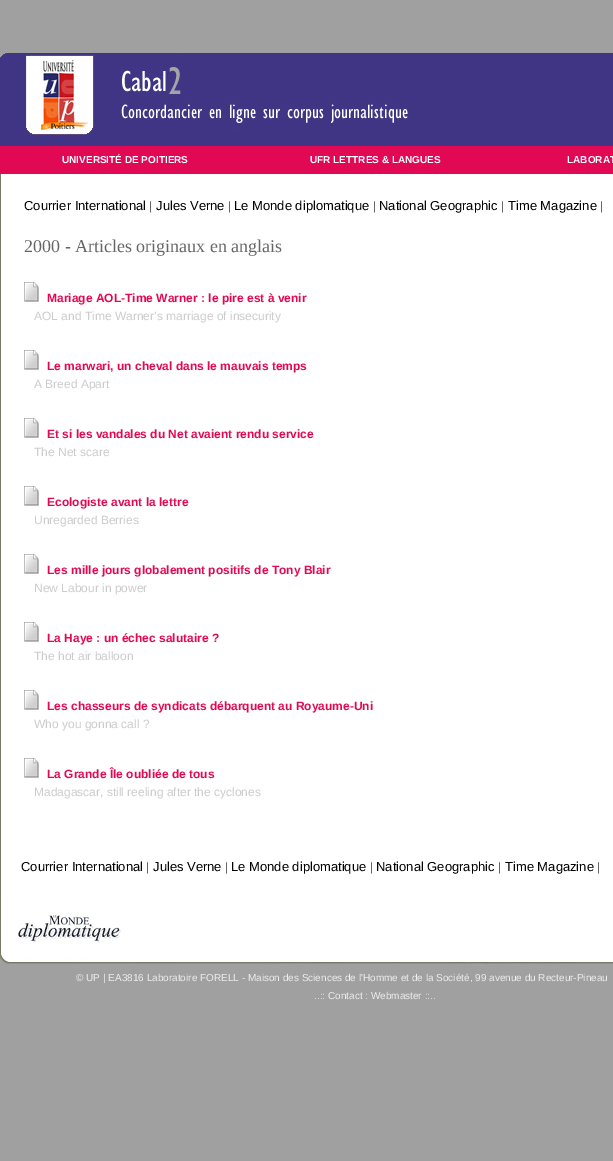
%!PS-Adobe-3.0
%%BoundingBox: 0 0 613 1161
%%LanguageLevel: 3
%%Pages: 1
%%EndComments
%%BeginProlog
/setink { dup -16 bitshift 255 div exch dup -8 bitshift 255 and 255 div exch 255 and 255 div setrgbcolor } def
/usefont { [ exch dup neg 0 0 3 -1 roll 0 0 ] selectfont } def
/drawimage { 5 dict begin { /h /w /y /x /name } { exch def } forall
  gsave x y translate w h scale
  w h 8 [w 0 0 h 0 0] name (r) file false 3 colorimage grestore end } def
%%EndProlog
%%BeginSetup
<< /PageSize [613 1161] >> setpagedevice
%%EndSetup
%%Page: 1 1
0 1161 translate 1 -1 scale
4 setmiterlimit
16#A0A0A0 setink
0 0 613 1161 rectfill
(img1.raw) 0 50 613 96 drawimage
16#E10954 setink
0 146 613 28 rectfill
/LiberationSans-Bold 10 usefont
16#FFFFFF setink
[
    [(UNIVERSITÉ DE POITIERS) 62 163]
    [(UFR LETTRES & LANGUES) 310 163]
    [(LABORAT) 567 163]
] { aload pop moveto show } forall
1 174 612 722 rectfill
16#787967 setink
0 174 1 722 rectfill
/LiberationSans-Regular 13 usefont
16#000000 setink
24 210 moveto (Courrier International) show
/LiberationSans-Regular 12 usefont
16#666666 setink
149 210 moveto (|) show
/LiberationSans-Regular 13 usefont
16#000000 setink
156 210 moveto (Jules Verne) show
/LiberationSans-Regular 12 usefont
16#666666 setink
228 210 moveto (|) show
/LiberationSans-Regular 13 usefont
16#000000 setink
234 210 moveto (Le Monde diplomatique) show
/LiberationSans-Regular 12 usefont
16#666666 setink
373 210 moveto (|) show
/LiberationSans-Regular 13 usefont
16#000000 setink
379 210 moveto (National Geographic) show
/LiberationSans-Regular 12 usefont
16#666666 setink
501 210 moveto (|) show
/LiberationSans-Regular 13 usefont
16#000000 setink
508 210 moveto (Time Magazine) show
/LiberationSans-Regular 12 usefont
16#666666 setink
600 210 moveto (|) show
/LiberationSerif-Regular 18 usefont
24 252 moveto (2000 - Articles originaux en anglais) show
(img2.raw) 24 282 15 20 drawimage
/LiberationSans-Bold 12 usefont
16#E10954 setink
47 302 moveto (Mariage AOL-Time Warner : le pire est à venir) show
/LiberationSans-Regular 12 usefont
16#CCCCCC setink
34 320 moveto (AOL and Time Warner’s marriage of insecurity) show
(img2.raw) 24 350 15 20 drawimage
/LiberationSans-Bold 12 usefont
16#E10954 setink
47 370 moveto (Le marwari, un cheval dans le mauvais temps) show
/LiberationSans-Regular 12 usefont
16#CCCCCC setink
34 388 moveto (A Breed Apart) show
(img2.raw) 24 418 15 20 drawimage
/LiberationSans-Bold 12 usefont
16#E10954 setink
47 438 moveto (Et si les vandales du Net avaient rendu service) show
/LiberationSans-Regular 12 usefont
16#CCCCCC setink
34 456 moveto (The Net scare) show
(img2.raw) 24 486 15 20 drawimage
/LiberationSans-Bold 12 usefont
16#E10954 setink
47 506 moveto (Ecologiste avant la lettre) show
/LiberationSans-Regular 12 usefont
16#CCCCCC setink
34 524 moveto (Unregarded Berries) show
(img2.raw) 24 554 15 20 drawimage
/LiberationSans-Bold 12 usefont
16#E10954 setink
47 574 moveto (Les mille jours globalement positifs de Tony Blair) show
/LiberationSans-Regular 12 usefont
16#CCCCCC setink
34 592 moveto (New Labour in power) show
(img2.raw) 24 622 15 20 drawimage
/LiberationSans-Bold 12 usefont
16#E10954 setink
47 642 moveto (La Haye : un échec salutaire ?) show
/LiberationSans-Regular 12 usefont
16#CCCCCC setink
34 660 moveto (The hot air balloon) show
(img2.raw) 24 690 15 20 drawimage
/LiberationSans-Bold 12 usefont
16#E10954 setink
47 710 moveto (Les chasseurs de syndicats débarquent au Royaume-Uni) show
/LiberationSans-Regular 12 usefont
16#CCCCCC setink
34 728 moveto (Who you gonna call ?) show
(img2.raw) 24 758 15 20 drawimage
/LiberationSans-Bold 12 usefont
16#E10954 setink
47 778 moveto (La Grande Île oubliée de tous) show
/LiberationSans-Regular 12 usefont
16#CCCCCC setink
34 796 moveto (Madagascar, still reeling after the cyclones) show
/LiberationSans-Regular 13 usefont
16#000000 setink
21 871 moveto (Courrier International) show
/LiberationSans-Regular 12 usefont
16#666666 setink
146 871 moveto (|) show
/LiberationSans-Regular 13 usefont
16#000000 setink
153 871 moveto (Jules Verne) show
/LiberationSans-Regular 12 usefont
16#666666 setink
225 871 moveto (|) show
/LiberationSans-Regular 13 usefont
16#000000 setink
231 871 moveto (Le Monde diplomatique) show
/LiberationSans-Regular 12 usefont
16#666666 setink
370 871 moveto (|) show
/LiberationSans-Regular 13 usefont
16#000000 setink
376 871 moveto (National Geographic) show
/LiberationSans-Regular 12 usefont
16#666666 setink
498 871 moveto (|) show
/LiberationSans-Regular 13 usefont
16#000000 setink
505 871 moveto (Time Magazine) show
/LiberationSans-Regular 12 usefont
16#666666 setink
597 871 moveto (|) show
(img3.raw) 0 896 613 71 drawimage
/LiberationSans-Regular 10 usefont
16#EEEEEE setink
76 981 moveto (© UP | EA3816 Laboratoire FORELL - Maison des Sciences de l'Homme et de la Société, 99 avenue du Recteur-Pineau) show
314 999 moveto (..:: Contact : Webmaster ::..) show
showpage
%%EOF
